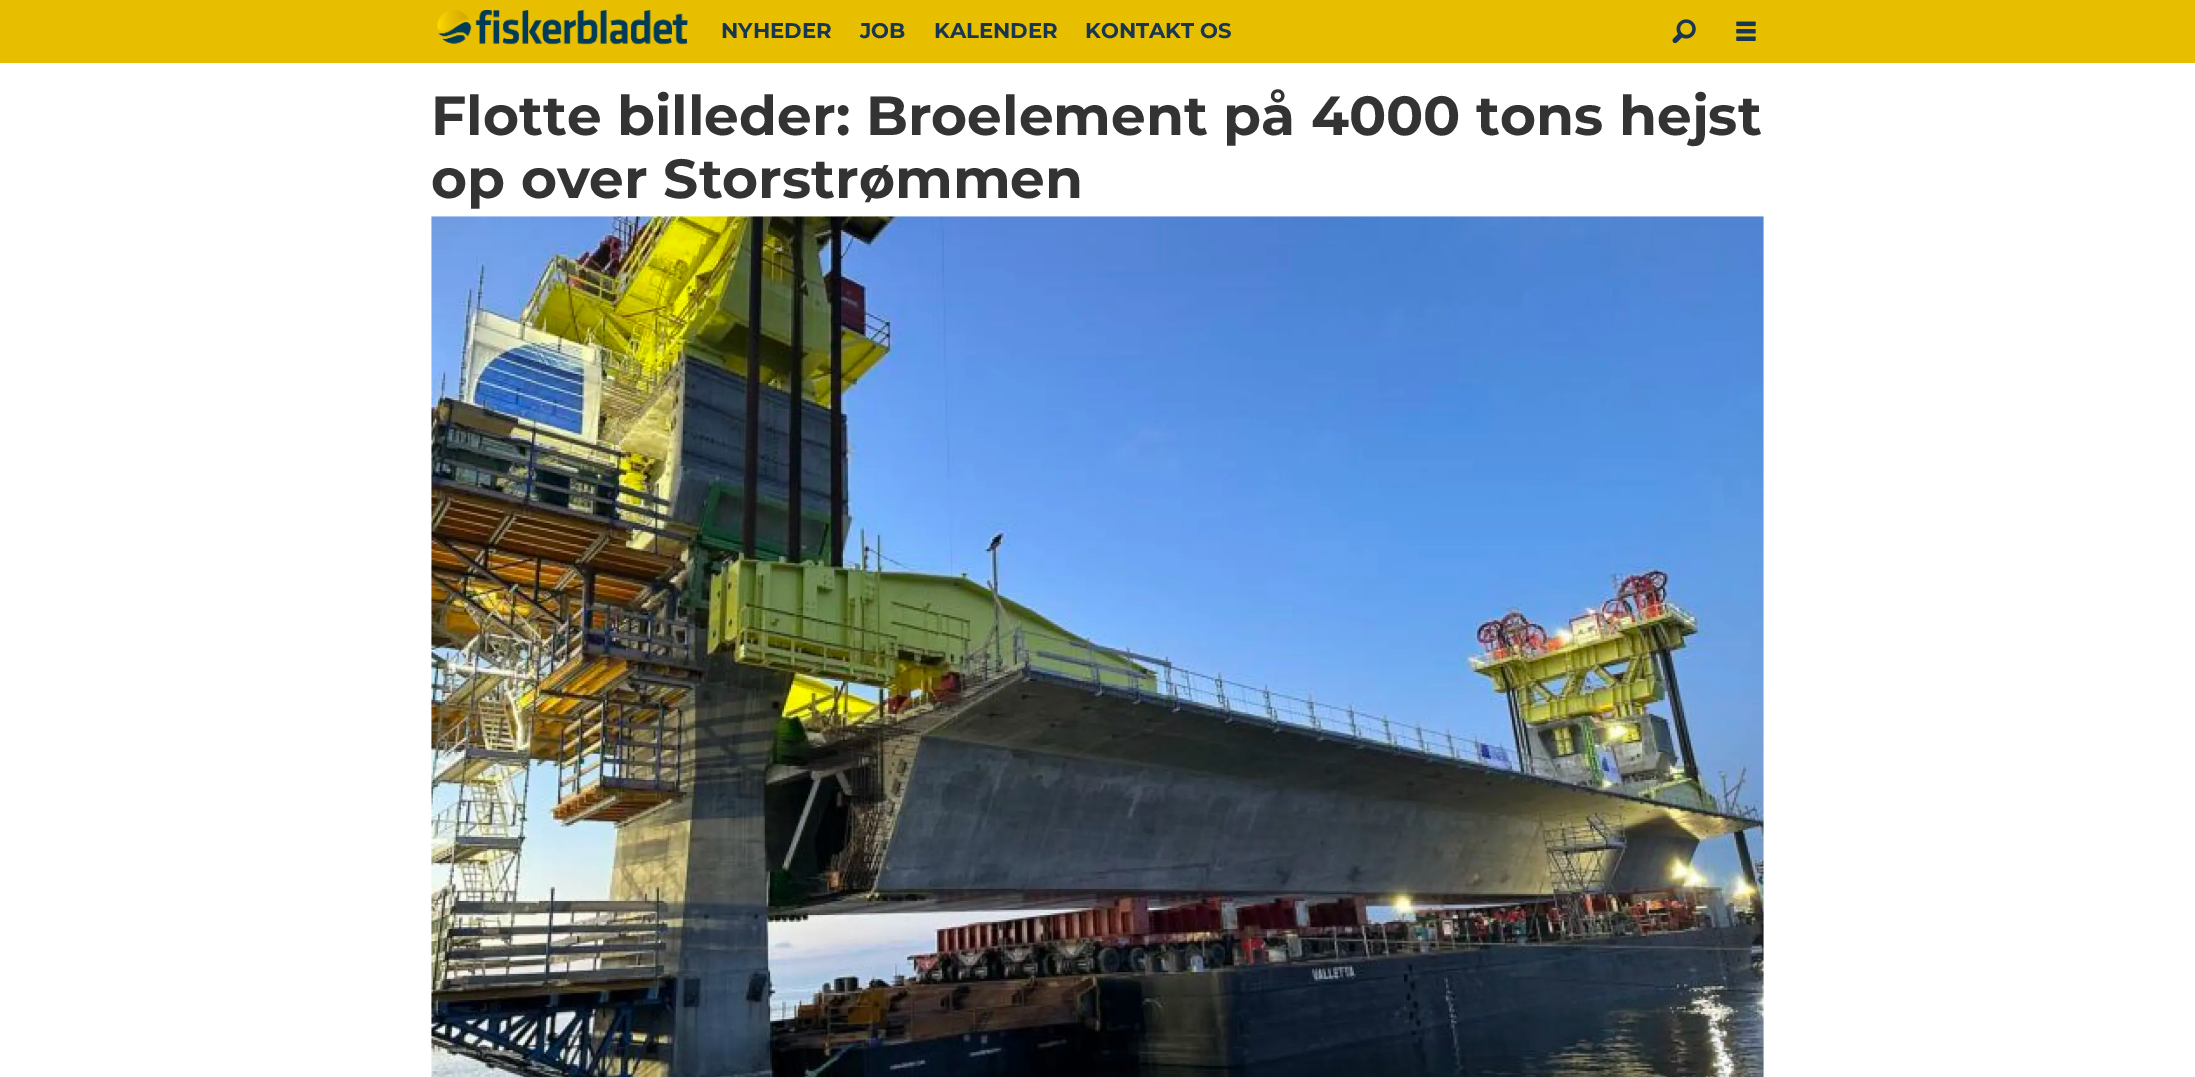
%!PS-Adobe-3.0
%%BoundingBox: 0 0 2195 1077
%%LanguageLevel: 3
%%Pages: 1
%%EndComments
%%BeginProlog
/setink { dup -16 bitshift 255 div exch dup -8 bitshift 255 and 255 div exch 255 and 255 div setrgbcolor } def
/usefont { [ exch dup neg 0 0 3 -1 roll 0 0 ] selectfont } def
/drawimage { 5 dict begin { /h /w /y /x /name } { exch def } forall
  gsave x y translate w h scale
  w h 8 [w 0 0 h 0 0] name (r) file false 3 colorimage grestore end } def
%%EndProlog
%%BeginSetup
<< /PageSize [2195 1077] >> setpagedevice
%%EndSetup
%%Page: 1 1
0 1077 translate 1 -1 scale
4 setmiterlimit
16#FFFFFF setink
0 0 2195 1077 rectfill
16#E8BE00 setink
0 0 2195 63 rectfill
(img1.raw) 437 10 251 35 drawimage
/Montserrat-Bold 21.25 usefont
16#183551 setink
[
    [(NYHEDER) 721 38]
    [(JOB) 860 38]
    [(KALENDER) 934 38]
    [(KONTAKT OS) 1085 38]
] { aload pop moveto show } forall
(img2.raw) 1672 19 24 25 drawimage
(img3.raw) 1736 21 20 20 drawimage
/Montserrat-Bold 55 usefont
16#333333 setink
431 135 moveto (Flotte billeder: Broelement på 4000 tons hejst) show
431 198 moveto (op over Storstrømmen) show
(img4.raw) 431 216 1333 861 drawimage
showpage
%%EOF
